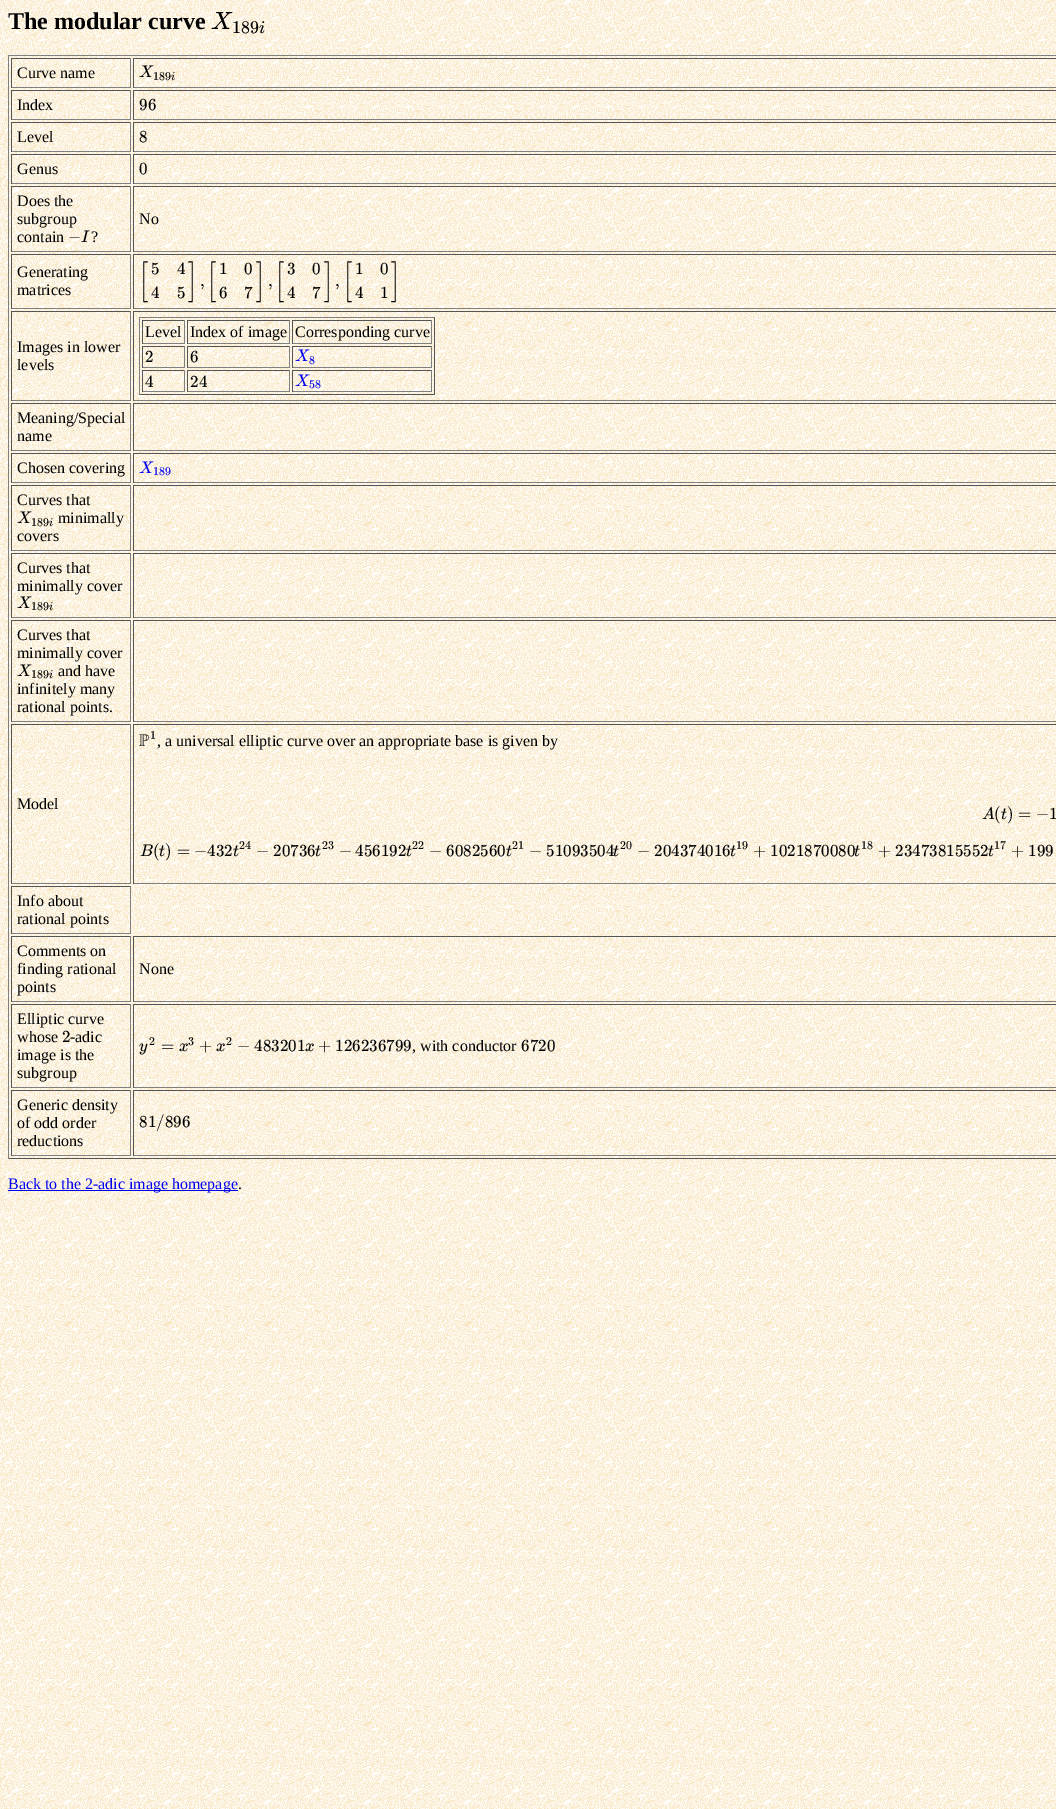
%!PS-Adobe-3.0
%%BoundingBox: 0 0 1056 1809
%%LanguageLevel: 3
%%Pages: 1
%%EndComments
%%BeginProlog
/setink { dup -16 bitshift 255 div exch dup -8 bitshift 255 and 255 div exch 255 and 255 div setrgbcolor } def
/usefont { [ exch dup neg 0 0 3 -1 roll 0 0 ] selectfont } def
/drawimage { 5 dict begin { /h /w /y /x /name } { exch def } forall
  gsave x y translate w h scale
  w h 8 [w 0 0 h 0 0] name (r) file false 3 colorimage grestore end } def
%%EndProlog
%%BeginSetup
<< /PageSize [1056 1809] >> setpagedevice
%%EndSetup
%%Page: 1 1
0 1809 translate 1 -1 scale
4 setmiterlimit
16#FFFFFF setink
0 0 1056 1809 rectfill
(img1.raw) 0 0 1056 1809 drawimage
/LiberationSerif-Bold 24 usefont
16#000000 setink
8 29 moveto (The modular curve) show
/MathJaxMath-Italic 25 usefont
211 29 moveto (X) show
/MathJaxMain-Regular 18 usefont
232 33 moveto (189) show
/MathJaxMath-Italic 18 usefont
259 33 moveto (i) show
[
    [8 55 1048 1 16#808080]
    [8 1158 1048 1 16#555555]
    [8 55 1 1104 16#808080]
    [11 58 120 1 16#555555]
    [130 58 1 30 16#808080]
    [11 87 120 1 16#808080]
    [11 58 1 30 16#555555]
] { aload pop setink rectfill } forall
/LiberationSerif-Regular 16 usefont
16#000000 setink
17 78 moveto (Curve name) show
[
    [133 58 923 1 16#555555]
    [133 87 923 1 16#808080]
    [133 58 1 30 16#555555]
] { aload pop setink rectfill } forall
/MathJaxMath-Italic 17 usefont
16#000000 setink
139 77 moveto (X) show
/MathJaxMain-Regular 12 usefont
153 80 moveto (189) show
/MathJaxMath-Italic 12 usefont
171 80 moveto (i) show
[
    [11 90 120 1 16#555555]
    [130 90 1 30 16#808080]
    [11 119 120 1 16#808080]
    [11 90 1 30 16#555555]
] { aload pop setink rectfill } forall
/LiberationSerif-Regular 16 usefont
16#000000 setink
17 110 moveto (Index) show
[
    [133 90 923 1 16#555555]
    [133 119 923 1 16#808080]
    [133 90 1 30 16#555555]
] { aload pop setink rectfill } forall
/MathJaxMain-Regular 17 usefont
16#000000 setink
139 110 moveto (96) show
[
    [11 122 120 1 16#555555]
    [130 122 1 30 16#808080]
    [11 151 120 1 16#808080]
    [11 122 1 30 16#555555]
] { aload pop setink rectfill } forall
/LiberationSerif-Regular 16 usefont
16#000000 setink
17 142 moveto (Level) show
[
    [133 122 923 1 16#555555]
    [133 151 923 1 16#808080]
    [133 122 1 30 16#555555]
] { aload pop setink rectfill } forall
/MathJaxMain-Regular 17 usefont
16#000000 setink
139 142 moveto (8) show
[
    [11 154 120 1 16#555555]
    [130 154 1 30 16#808080]
    [11 183 120 1 16#808080]
    [11 154 1 30 16#555555]
] { aload pop setink rectfill } forall
/LiberationSerif-Regular 16 usefont
16#000000 setink
17 174 moveto (Genus) show
[
    [133 154 923 1 16#555555]
    [133 183 923 1 16#808080]
    [133 154 1 30 16#555555]
] { aload pop setink rectfill } forall
/MathJaxMain-Regular 17 usefont
16#000000 setink
139 174 moveto (0) show
[
    [11 186 120 1 16#555555]
    [130 186 1 66 16#808080]
    [11 251 120 1 16#808080]
    [11 186 1 66 16#555555]
] { aload pop setink rectfill } forall
/LiberationSerif-Regular 16 usefont
16#000000 setink
[
    [(Does the) 17 206]
    [(subgroup) 17 224]
    [(contain) 17 242]
] { aload pop moveto show } forall
/MathJaxMain-Regular 17 usefont
68 242 moveto (−) show
/MathJaxMath-Italic 17 usefont
81 242 moveto (I) show
/LiberationSerif-Regular 16 usefont
91 242 moveto (?) show
[
    [133 186 923 1 16#555555]
    [133 251 923 1 16#808080]
    [133 186 1 66 16#555555]
] { aload pop setink rectfill } forall
16#000000 setink
139 224 moveto (No) show
[
    [11 254 120 1 16#555555]
    [130 254 1 55 16#808080]
    [11 308 120 1 16#808080]
    [11 254 1 55 16#555555]
] { aload pop setink rectfill } forall
16#000000 setink
17 277 moveto (Generating) show
17 295 moveto (matrices) show
[
    [133 254 923 1 16#555555]
    [133 308 923 1 16#808080]
    [133 254 1 55 16#555555]
] { aload pop setink rectfill } forall
/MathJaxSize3-Regular 17 usefont
16#000000 setink
139 286 moveto ([) show
/MathJaxMain-Regular 17 usefont
[
    [(5) 151 274]
    [(4) 151 298]
    [(4) 177 274]
    [(5) 177 298]
] { aload pop moveto show } forall
/MathJaxSize3-Regular 17 usefont
188 286 moveto (]) show
/MathJaxMain-Regular 17 usefont
200 286 moveto (,) show
/MathJaxSize3-Regular 17 usefont
207 286 moveto ([) show
/MathJaxMain-Regular 17 usefont
[
    [(1) 219 274]
    [(6) 219 298]
    [(0) 244 274]
    [(7) 244 298]
] { aload pop moveto show } forall
/MathJaxSize3-Regular 17 usefont
256 286 moveto (]) show
/MathJaxMain-Regular 17 usefont
268 286 moveto (,) show
/MathJaxSize3-Regular 17 usefont
275 286 moveto ([) show
/MathJaxMain-Regular 17 usefont
[
    [(3) 287 274]
    [(4) 287 298]
    [(0) 312 274]
    [(7) 312 298]
] { aload pop moveto show } forall
/MathJaxSize3-Regular 17 usefont
324 286 moveto (]) show
/MathJaxMain-Regular 17 usefont
335 286 moveto (,) show
/MathJaxSize3-Regular 17 usefont
343 286 moveto ([) show
/MathJaxMain-Regular 17 usefont
[
    [(1) 355 274]
    [(4) 355 298]
    [(0) 380 274]
    [(1) 380 298]
] { aload pop moveto show } forall
/MathJaxSize3-Regular 17 usefont
391 286 moveto (]) show
[
    [11 311 120 1 16#555555]
    [130 311 1 90 16#808080]
    [11 400 120 1 16#808080]
    [11 311 1 90 16#555555]
] { aload pop setink rectfill } forall
/LiberationSerif-Regular 16 usefont
16#000000 setink
17 352 moveto (Images in lower) show
17 370 moveto (levels) show
[
    [133 311 923 1 16#555555]
    [133 400 923 1 16#808080]
    [133 311 1 90 16#555555]
    [139 317 296 1 16#808080]
    [434 317 1 78 16#555555]
    [139 394 296 1 16#555555]
    [139 317 1 78 16#808080]
    [142 320 43 1 16#555555]
    [184 320 1 24 16#808080]
    [142 343 43 1 16#808080]
    [142 320 1 24 16#555555]
] { aload pop setink rectfill } forall
16#000000 setink
145 337 moveto (Level) show
[
    [187 320 103 1 16#555555]
    [289 320 1 24 16#808080]
    [187 343 103 1 16#808080]
    [187 320 1 24 16#555555]
] { aload pop setink rectfill } forall
16#000000 setink
190 337 moveto (Index of image) show
[
    [292 320 140 1 16#555555]
    [431 320 1 24 16#808080]
    [292 343 140 1 16#808080]
    [292 320 1 24 16#555555]
] { aload pop setink rectfill } forall
16#000000 setink
295 337 moveto (Corresponding curve) show
[
    [142 346 43 1 16#555555]
    [184 346 1 22 16#808080]
    [142 367 43 1 16#808080]
    [142 346 1 22 16#555555]
] { aload pop setink rectfill } forall
/MathJaxMain-Regular 17 usefont
16#000000 setink
145 362 moveto (2) show
[
    [187 346 103 1 16#555555]
    [289 346 1 22 16#808080]
    [187 367 103 1 16#808080]
    [187 346 1 22 16#555555]
] { aload pop setink rectfill } forall
16#000000 setink
190 362 moveto (6) show
[
    [292 346 140 1 16#555555]
    [431 346 1 22 16#808080]
    [292 367 140 1 16#808080]
    [292 346 1 22 16#555555]
] { aload pop setink rectfill } forall
/MathJaxMath-Italic 17 usefont
16#0000EE setink
295 361 moveto (X) show
/MathJaxMain-Regular 12 usefont
309 364 moveto (8) show
[
    [142 370 43 1 16#555555]
    [184 370 1 22 16#808080]
    [142 391 43 1 16#808080]
    [142 370 1 22 16#555555]
] { aload pop setink rectfill } forall
/MathJaxMain-Regular 17 usefont
16#000000 setink
145 387 moveto (4) show
[
    [187 370 103 1 16#555555]
    [289 370 1 22 16#808080]
    [187 391 103 1 16#808080]
    [187 370 1 22 16#555555]
] { aload pop setink rectfill } forall
16#000000 setink
190 387 moveto (24) show
[
    [292 370 140 1 16#555555]
    [431 370 1 22 16#808080]
    [292 391 140 1 16#808080]
    [292 370 1 22 16#555555]
] { aload pop setink rectfill } forall
/MathJaxMath-Italic 17 usefont
16#0000EE setink
295 386 moveto (X) show
/MathJaxMain-Regular 12 usefont
309 388 moveto (58) show
[
    [11 403 120 1 16#555555]
    [130 403 1 48 16#808080]
    [11 450 120 1 16#808080]
    [11 403 1 48 16#555555]
] { aload pop setink rectfill } forall
/LiberationSerif-Regular 16 usefont
16#000000 setink
17 423 moveto (Meaning/Special) show
17 441 moveto (name) show
[
    [133 403 923 1 16#555555]
    [133 450 923 1 16#808080]
    [133 403 1 48 16#555555]
    [11 453 120 1 16#555555]
    [130 453 1 30 16#808080]
    [11 482 120 1 16#808080]
    [11 453 1 30 16#555555]
] { aload pop setink rectfill } forall
16#000000 setink
17 473 moveto (Chosen covering) show
[
    [133 453 923 1 16#555555]
    [133 482 923 1 16#808080]
    [133 453 1 30 16#555555]
] { aload pop setink rectfill } forall
/MathJaxMath-Italic 17 usefont
16#0000EE setink
139 473 moveto (X) show
/MathJaxMain-Regular 12 usefont
153 475 moveto (189) show
[
    [11 485 120 1 16#555555]
    [130 485 1 66 16#808080]
    [11 550 120 1 16#808080]
    [11 485 1 66 16#555555]
] { aload pop setink rectfill } forall
/LiberationSerif-Regular 16 usefont
16#000000 setink
17 505 moveto (Curves that) show
/MathJaxMath-Italic 17 usefont
17 523 moveto (X) show
/MathJaxMain-Regular 12 usefont
31 526 moveto (189) show
/MathJaxMath-Italic 12 usefont
49 526 moveto (i) show
/LiberationSerif-Regular 16 usefont
58 523 moveto (minimally) show
17 541 moveto (covers) show
[
    [133 485 923 1 16#555555]
    [133 550 923 1 16#808080]
    [133 485 1 66 16#555555]
    [11 553 120 1 16#555555]
    [130 553 1 65 16#808080]
    [11 617 120 1 16#808080]
    [11 553 1 65 16#555555]
] { aload pop setink rectfill } forall
16#000000 setink
17 573 moveto (Curves that) show
17 591 moveto (minimally cover) show
/MathJaxMath-Italic 17 usefont
17 608 moveto (X) show
/MathJaxMain-Regular 12 usefont
31 610 moveto (189) show
/MathJaxMath-Italic 12 usefont
49 610 moveto (i) show
[
    [133 553 923 1 16#555555]
    [133 617 923 1 16#808080]
    [133 553 1 65 16#555555]
    [11 620 120 1 16#555555]
    [130 620 1 102 16#808080]
    [11 721 120 1 16#808080]
    [11 620 1 102 16#555555]
] { aload pop setink rectfill } forall
/LiberationSerif-Regular 16 usefont
16#000000 setink
17 640 moveto (Curves that) show
17 658 moveto (minimally cover) show
/MathJaxMath-Italic 17 usefont
17 676 moveto (X) show
/MathJaxMain-Regular 12 usefont
31 678 moveto (189) show
/MathJaxMath-Italic 12 usefont
49 678 moveto (i) show
/LiberationSerif-Regular 16 usefont
[
    [(and have) 58 676]
    [(infinitely many) 17 694]
    [(rational points.) 17 712]
] { aload pop moveto show } forall
[
    [133 620 923 1 16#555555]
    [133 721 923 1 16#808080]
    [133 620 1 102 16#555555]
    [11 724 120 1 16#555555]
    [130 724 1 160 16#808080]
    [11 883 120 1 16#808080]
    [11 724 1 160 16#555555]
] { aload pop setink rectfill } forall
16#000000 setink
17 809 moveto (Model) show
[
    [133 724 923 1 16#555555]
    [133 883 923 1 16#808080]
    [133 724 1 160 16#555555]
] { aload pop setink rectfill } forall
/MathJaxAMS-Regular 17 usefont
16#000000 setink
139 746 moveto (P) show
/MathJaxMain-Regular 12 usefont
150 739 moveto (1) show
/LiberationSerif-Regular 16 usefont
157 746 moveto (, a universal elliptic curve over an appropriate base is given by) show
/MathJaxMath-Italic 17 usefont
982 819 moveto (A) show
/MathJaxMain-Regular 17 usefont
994 819 moveto (\() show
/MathJaxMath-Italic 17 usefont
1001 819 moveto (t) show
/MathJaxMain-Regular 17 usefont
[
    [(\)) 1007 819]
    [(=) 1018 819]
    [(−1) 1036 819]
] { aload pop moveto show } forall
/MathJaxMath-Italic 17 usefont
140 856 moveto (B) show
/MathJaxMain-Regular 17 usefont
153 856 moveto (\() show
/MathJaxMath-Italic 17 usefont
159 856 moveto (t) show
/MathJaxMain-Regular 17 usefont
[
    [(\)) 165 856]
    [(=) 177 856]
    [(−432) 194 856]
] { aload pop moveto show } forall
/MathJaxMath-Italic 17 usefont
233 856 moveto (t) show
/MathJaxMain-Regular 12 usefont
239 849 moveto (24) show
/MathJaxMain-Regular 17 usefont
256 856 moveto (−) show
273 856 moveto (20736) show
/MathJaxMath-Italic 17 usefont
315 856 moveto (t) show
/MathJaxMain-Regular 12 usefont
322 849 moveto (23) show
/MathJaxMain-Regular 17 usefont
339 856 moveto (−) show
355 856 moveto (456192) show
/MathJaxMath-Italic 17 usefont
406 856 moveto (t) show
/MathJaxMain-Regular 12 usefont
412 849 moveto (22) show
/MathJaxMain-Regular 17 usefont
429 856 moveto (−) show
446 856 moveto (6082560) show
/MathJaxMath-Italic 17 usefont
506 856 moveto (t) show
/MathJaxMain-Regular 12 usefont
512 849 moveto (21) show
/MathJaxMain-Regular 17 usefont
529 856 moveto (−) show
546 856 moveto (51093504) show
/MathJaxMath-Italic 17 usefont
613 856 moveto (t) show
/MathJaxMain-Regular 12 usefont
620 849 moveto (20) show
/MathJaxMain-Regular 17 usefont
637 856 moveto (−) show
654 856 moveto (204374016) show
/MathJaxMath-Italic 17 usefont
730 856 moveto (t) show
/MathJaxMain-Regular 12 usefont
736 849 moveto (19) show
/MathJaxMain-Regular 17 usefont
753 856 moveto (+) show
770 856 moveto (1021870080) show
/MathJaxMath-Italic 17 usefont
854 856 moveto (t) show
/MathJaxMain-Regular 12 usefont
861 849 moveto (18) show
/MathJaxMain-Regular 17 usefont
878 856 moveto (+) show
895 856 moveto (23473815552) show
/MathJaxMath-Italic 17 usefont
988 856 moveto (t) show
/MathJaxMain-Regular 12 usefont
994 849 moveto (17) show
/MathJaxMain-Regular 17 usefont
1011 856 moveto (+) show
1028 856 moveto (199) show
[
    [11 886 120 1 16#555555]
    [130 886 1 48 16#808080]
    [11 933 120 1 16#808080]
    [11 886 1 48 16#555555]
] { aload pop setink rectfill } forall
/LiberationSerif-Regular 16 usefont
16#000000 setink
17 906 moveto (Info about) show
17 924 moveto (rational points) show
[
    [11 936 120 1 16#555555]
    [130 936 1 66 16#808080]
    [11 1001 120 1 16#808080]
    [11 936 1 66 16#555555]
] { aload pop setink rectfill } forall
16#000000 setink
[
    [(Comments on) 17 956]
    [(finding rational) 17 974]
    [(points) 17 992]
] { aload pop moveto show } forall
[
    [133 936 923 1 16#555555]
    [133 1001 923 1 16#808080]
    [133 936 1 66 16#555555]
] { aload pop setink rectfill } forall
16#000000 setink
139 974 moveto (None) show
[
    [11 1004 120 1 16#555555]
    [130 1004 1 84 16#808080]
    [11 1087 120 1 16#808080]
    [11 1004 1 84 16#555555]
] { aload pop setink rectfill } forall
16#000000 setink
17 1024 moveto (Elliptic curve) show
17 1042 moveto (whose) show
/MathJaxMain-Regular 17 usefont
62 1042 moveto (2) show
/LiberationSerif-Regular 16 usefont
[
    [(-adic) 70 1042]
    [(image is the) 17 1060]
    [(subgroup) 17 1078]
] { aload pop moveto show } forall
[
    [133 1004 923 1 16#555555]
    [133 1087 923 1 16#808080]
    [133 1004 1 84 16#555555]
] { aload pop setink rectfill } forall
/MathJaxMain-Regular 12 usefont
16#000000 setink
149 1045 moveto (2) show
/MathJaxMath-Italic 17 usefont
139 1051 moveto (y) show
/MathJaxMain-Regular 17 usefont
161 1051 moveto (=) show
/MathJaxMain-Regular 12 usefont
188 1045 moveto (3) show
/MathJaxMath-Italic 17 usefont
179 1051 moveto (x) show
/MathJaxMain-Regular 17 usefont
199 1051 moveto (+) show
/MathJaxMain-Regular 12 usefont
226 1045 moveto (2) show
/MathJaxMath-Italic 17 usefont
216 1051 moveto (x) show
/MathJaxMain-Regular 17 usefont
237 1051 moveto (−) show
254 1051 moveto (483201) show
/MathJaxMath-Italic 17 usefont
305 1051 moveto (x) show
/MathJaxMain-Regular 17 usefont
318 1051 moveto (+) show
335 1051 moveto (126236799) show
/LiberationSerif-Regular 16 usefont
412 1051 moveto (, with conductor) show
/MathJaxMain-Regular 17 usefont
521 1051 moveto (6720) show
[
    [11 1090 120 1 16#555555]
    [130 1090 1 66 16#808080]
    [11 1155 120 1 16#808080]
    [11 1090 1 66 16#555555]
] { aload pop setink rectfill } forall
/LiberationSerif-Regular 16 usefont
16#000000 setink
[
    [(Generic density) 17 1110]
    [(of odd order) 17 1128]
    [(reductions) 17 1146]
] { aload pop moveto show } forall
[
    [133 1090 923 1 16#555555]
    [133 1155 923 1 16#808080]
    [133 1090 1 66 16#555555]
] { aload pop setink rectfill } forall
/MathJaxMain-Regular 17 usefont
16#000000 setink
139 1127 moveto (81/896) show
16#0000EE setink
8 1190 230 1 rectfill
/LiberationSerif-Regular 16 usefont
8 1189 moveto (Back to the 2-adic image homepage) show
16#000000 setink
238 1189 moveto (.) show
showpage
%%EOF
